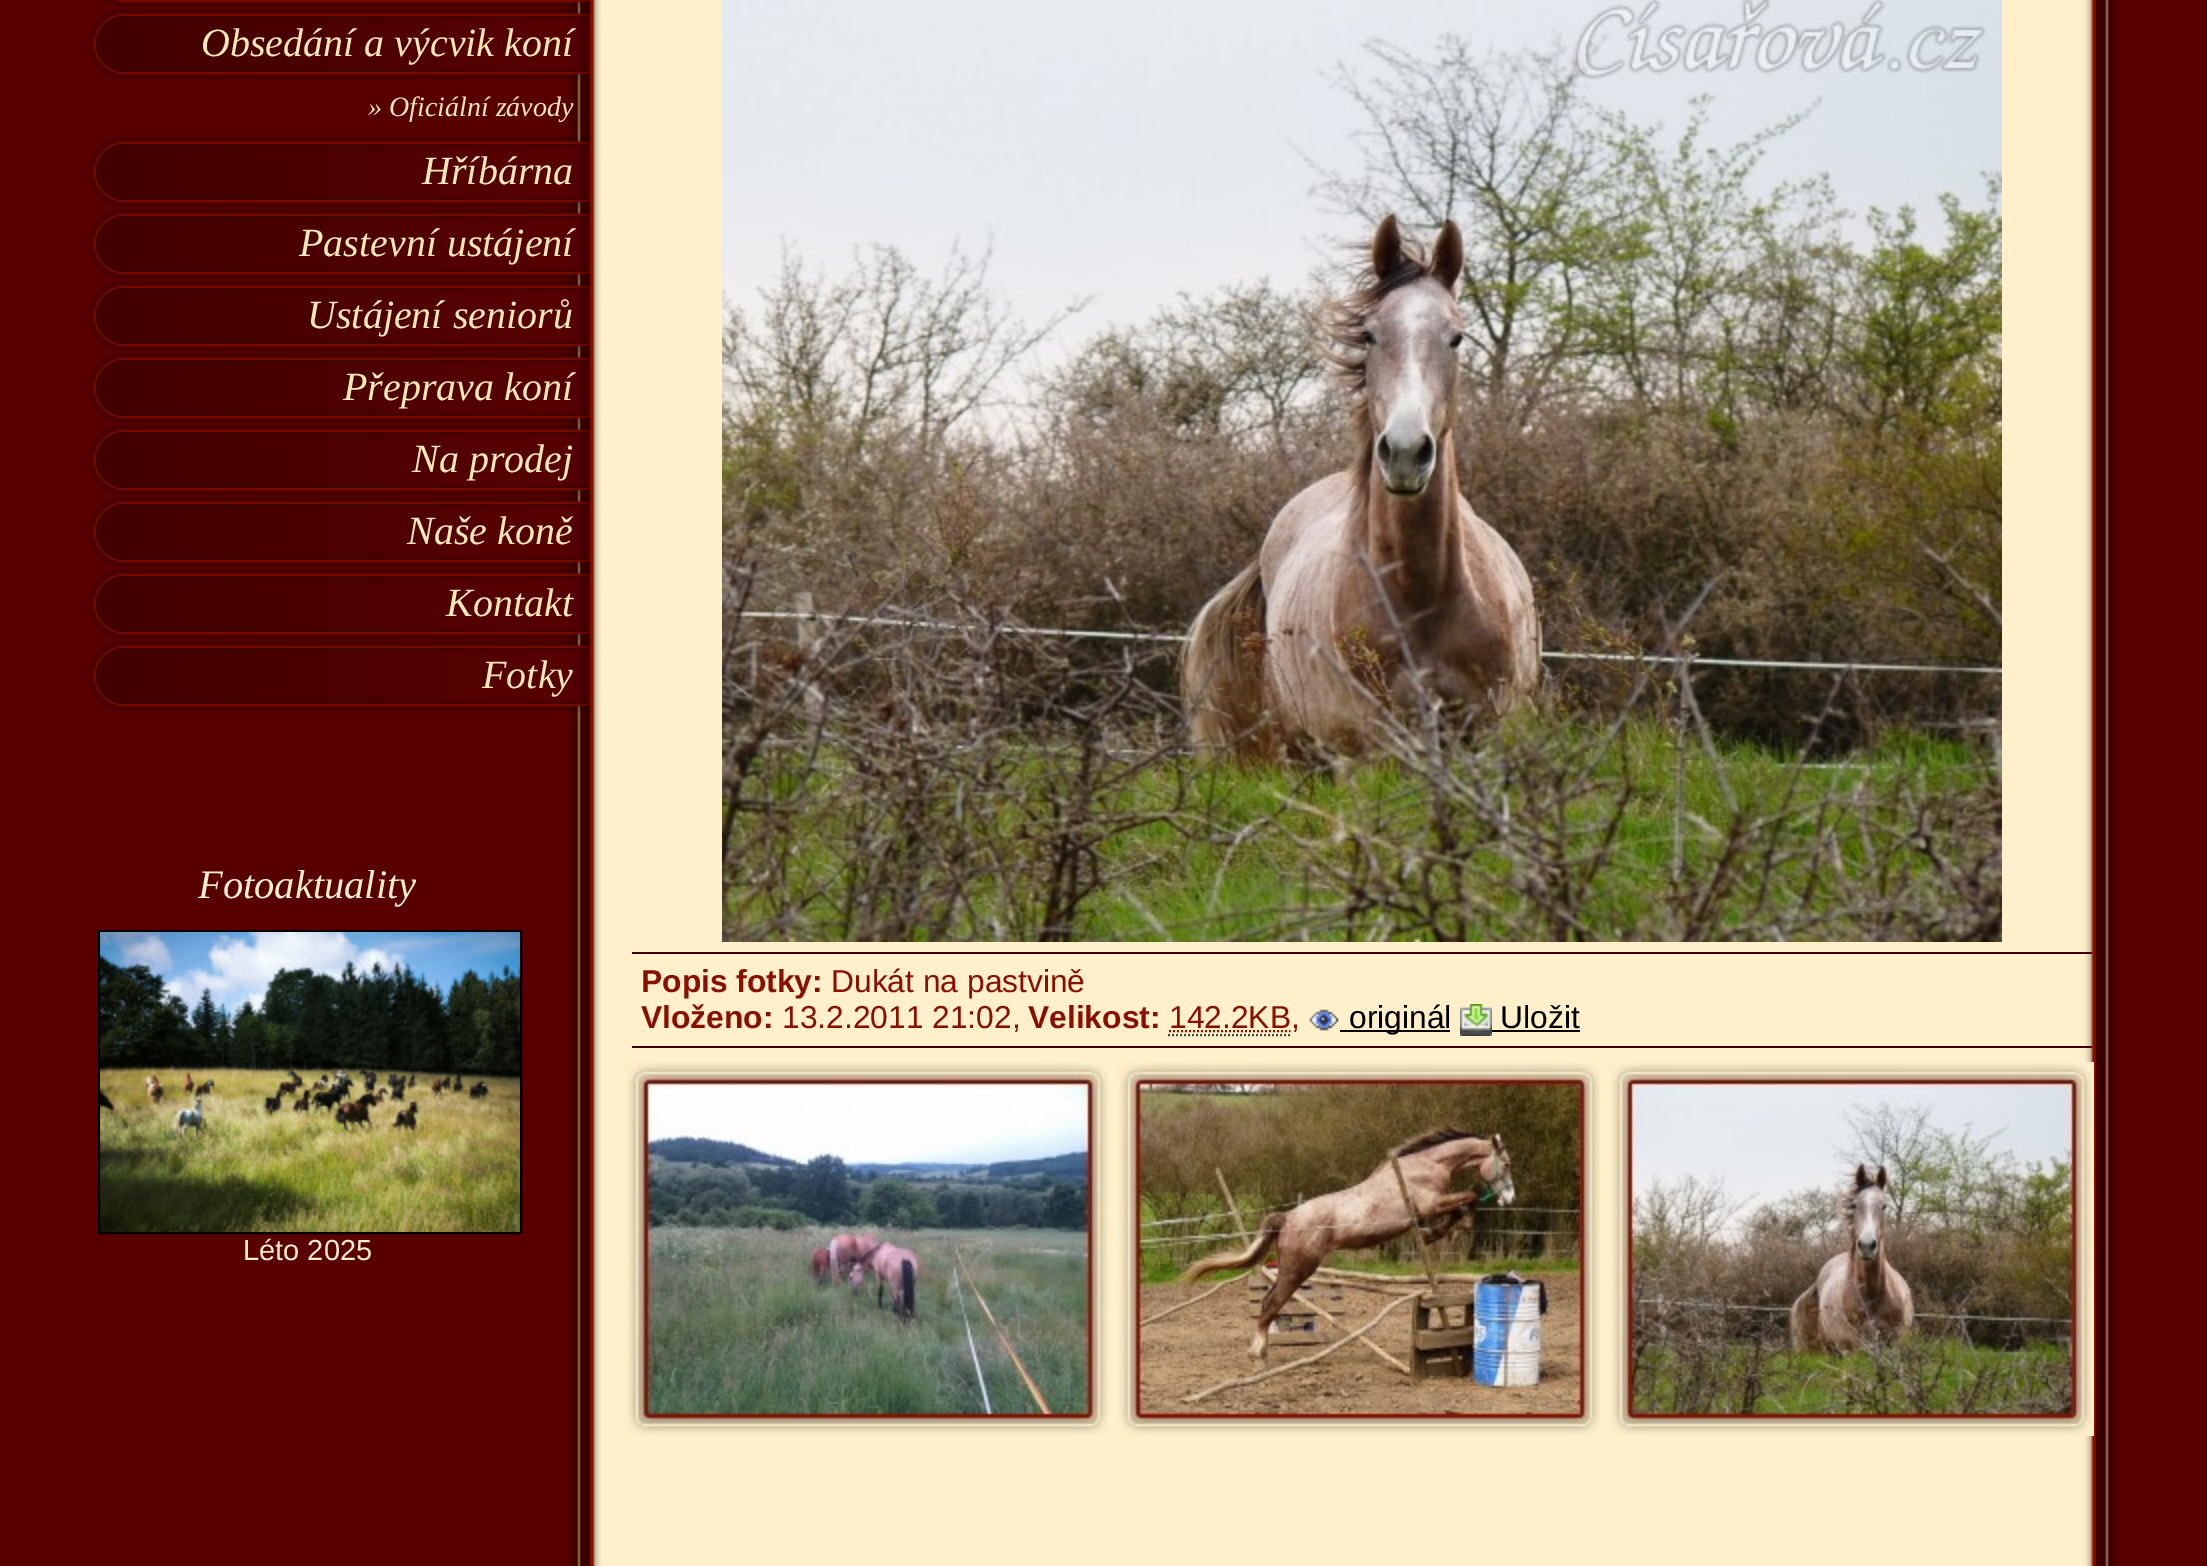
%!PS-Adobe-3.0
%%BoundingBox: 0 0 2207 1566
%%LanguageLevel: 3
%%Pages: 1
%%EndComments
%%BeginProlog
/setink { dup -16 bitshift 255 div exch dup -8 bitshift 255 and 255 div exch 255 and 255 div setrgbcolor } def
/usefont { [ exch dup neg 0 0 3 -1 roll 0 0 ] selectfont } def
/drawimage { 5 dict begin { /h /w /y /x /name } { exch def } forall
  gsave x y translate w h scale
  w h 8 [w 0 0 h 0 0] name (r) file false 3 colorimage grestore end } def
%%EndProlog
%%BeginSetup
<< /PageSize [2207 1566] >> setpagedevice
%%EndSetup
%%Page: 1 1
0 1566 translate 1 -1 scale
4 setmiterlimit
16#580000 setink
0 0 2207 1566 rectfill
(img1.raw) 566 0 1554 1566 drawimage
(img2.raw) 102 0 489 8 drawimage
(img3.raw) 88 8 503 72 drawimage
/LiberationSerif-Italic 40 usefont
16#FFE9B6 setink
201 56 moveto (Obsedání a výcvik koní) show
/LiberationSerif-Italic 28 usefont
368 116 moveto (» Oficiální závody) show
(img3.raw) 88 136 503 72 drawimage
/LiberationSerif-Italic 40 usefont
422 184 moveto (Hříbárna) show
(img3.raw) 88 208 503 72 drawimage
299 256 moveto (Pastevní ustájení) show
(img3.raw) 88 280 503 72 drawimage
307 328 moveto (Ustájení seniorů) show
(img3.raw) 88 352 503 72 drawimage
343 400 moveto (Přeprava koní) show
(img3.raw) 88 424 503 72 drawimage
412 472 moveto (Na prodej) show
(img3.raw) 88 496 503 72 drawimage
407 544 moveto (Naše koně) show
(img3.raw) 88 568 503 72 drawimage
446 616 moveto (Kontakt) show
(img3.raw) 88 640 503 72 drawimage
482 688 moveto (Fotky) show
/LiberationSerif-Italic 40.5 usefont
16#FFEFCA setink
198 898 moveto (Fotoaktuality) show
16#000000 setink
2 setlinewidth
99 931 422 302 rectstroke
(img4.raw) 100 932 420 300 drawimage
/LiberationSans-Regular 29 usefont
16#FFEFCA setink
243 1260 moveto (Léto 2025) show
(img5.raw) 722 0 1280 942 drawimage
16#410000 setink
632 952 1460 2 rectfill
632 1046 1460 2 rectfill
/LiberationSans-Bold 31.75 usefont
16#890F01 setink
641 992 moveto (Popis fotky:) show
/LiberationSans-Regular 31.75 usefont
831 992 moveto (Dukát na pastvině) show
/LiberationSans-Bold 31.75 usefont
641 1028 moveto (Vloženo:) show
/LiberationSans-Regular 31.75 usefont
782 1028 moveto (13.2.2011 21:02,) show
/LiberationSans-Bold 31.75 usefont
1028 1028 moveto (Velikost:) show
[2 2] 0 setdash
1169 1031 moveto 1290.5 1031 lineto stroke
/LiberationSans-Regular 31.75 usefont
1169 1028 moveto (142.2KB,) show
16#4A4A4A setink
1168 1035 moveto 1290 1035 lineto stroke
(img6.raw) 1309 1009 30 22 drawimage
16#000000 setink
1340 1030 110 2 rectfill
1349 1028 moveto (originál) show
(img7.raw) 1460 1004 32 32 drawimage
1500 1028 moveto (Uložit) show
1492 1030 88 2 rectfill
(img8.raw) 626 1062 483 374 drawimage
(img9.raw) 1118 1062 483 374 drawimage
(img10.raw) 1610 1062 484 374 drawimage
showpage
%%EOF
